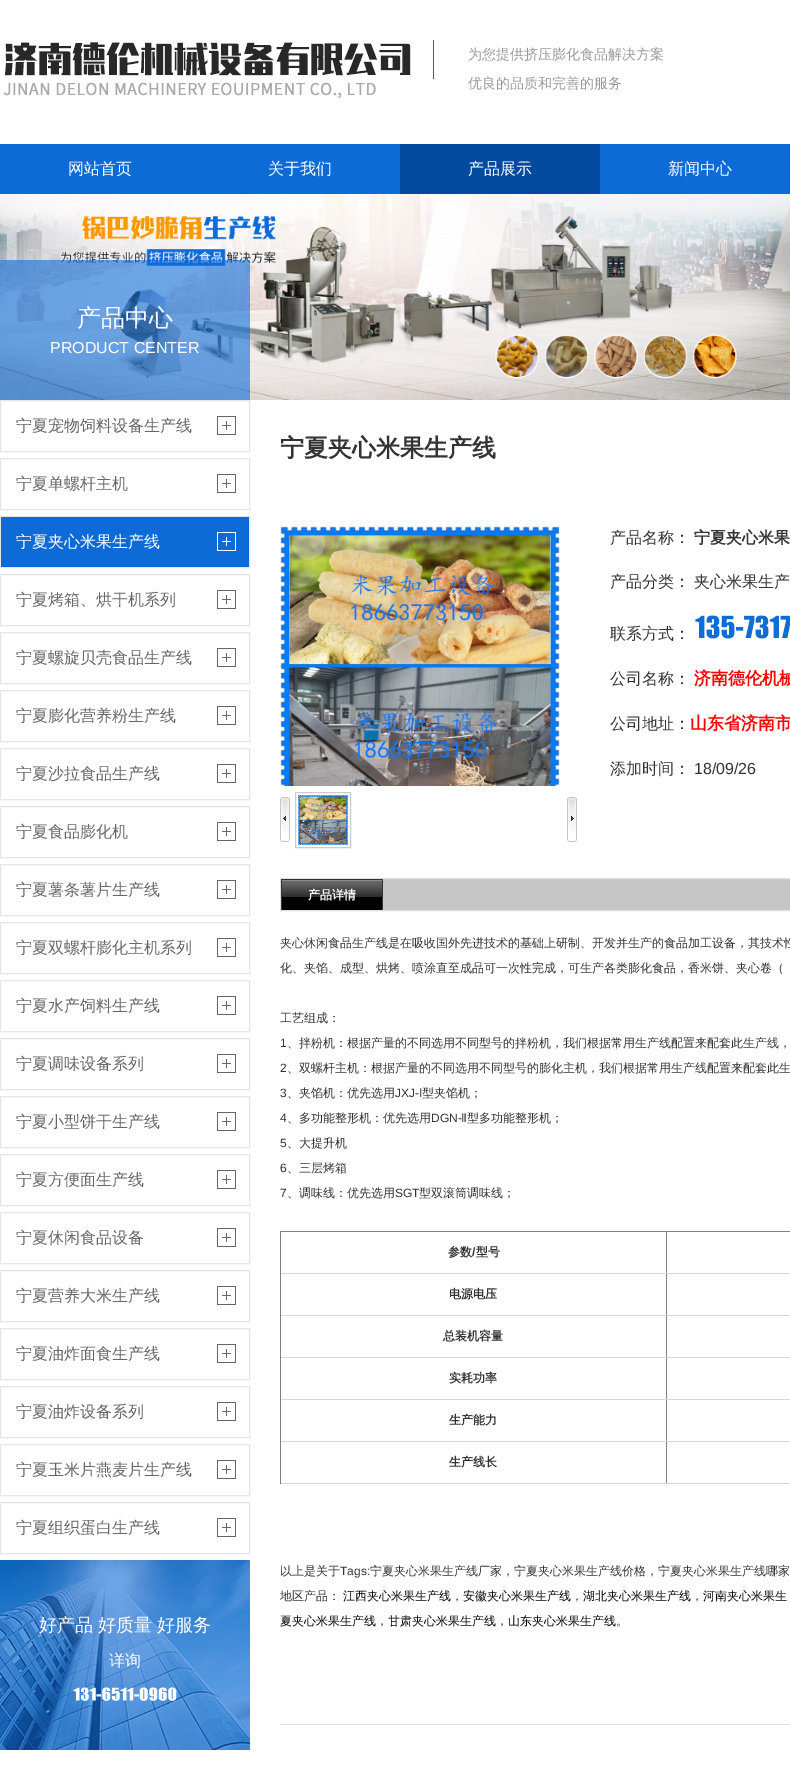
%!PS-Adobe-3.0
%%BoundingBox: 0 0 790 1777
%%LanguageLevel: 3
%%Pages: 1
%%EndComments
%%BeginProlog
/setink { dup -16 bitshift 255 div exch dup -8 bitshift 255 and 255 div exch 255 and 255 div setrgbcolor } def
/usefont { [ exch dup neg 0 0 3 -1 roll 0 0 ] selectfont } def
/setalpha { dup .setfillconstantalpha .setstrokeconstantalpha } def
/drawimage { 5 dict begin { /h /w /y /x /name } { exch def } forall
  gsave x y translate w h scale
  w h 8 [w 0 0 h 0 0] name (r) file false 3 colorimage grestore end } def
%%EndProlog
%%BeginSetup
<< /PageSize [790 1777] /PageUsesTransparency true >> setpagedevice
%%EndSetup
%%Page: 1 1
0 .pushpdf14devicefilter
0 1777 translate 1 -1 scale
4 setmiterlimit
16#FFFFFF setink
0 0 790 1777 rectfill
(img1.raw) 3 40 431 58 drawimage
/WenQuanYiZenHei-Medium 14 usefont
16#999999 setink
468 59 moveto (为您提供挤压膨化食品解决方案) show
468 88 moveto (优良的品质和完善的服务) show
16#0D6BD8 setink
0 144 790 50 rectfill
/WenQuanYiZenHei-Medium 16 usefont
16#FFFFFF setink
68 174 moveto (网站首页) show
268 174 moveto (关于我们) show
16#014AA0 setink
400 144 200 50 rectfill
16#FFFFFF setink
468 174 moveto (产品展示) show
668 174 moveto (新闻中心) show
(img2.raw) 0 194 790 206 drawimage
0.6 setalpha
16#0D6BD8 setink
0 260 250 140 rectfill
/WenQuanYiZenHei-Medium 24 usefont
1 setalpha
16#FFFFFF setink
77 326 moveto (产品中心) show
/LiberationSans-Regular 16 usefont
50 353 moveto (PRODUCT CENTER) show
16#E6E6E6 setink
0.5 400.5 249 51 rectstroke
(img3.raw) 217 416 19 19 drawimage
/WenQuanYiZenHei-Medium 16 usefont
16#666666 setink
16 431 moveto (宁夏宠物饲料设备生产线) show
16#E6E6E6 setink
0.5 458.5 249 51 rectstroke
(img3.raw) 217 474 19 19 drawimage
16#666666 setink
16 489 moveto (宁夏单螺杆主机) show
16#E6E6E6 setink
0.5 516.5 249 51 rectstroke
16#0D6BD8 setink
1 517 248 50 rectfill
(img4.raw) 217 532 19 19 drawimage
16#FFFFFF setink
16 547 moveto (宁夏夹心米果生产线) show
16#E6E6E6 setink
0.5 574.5 249 51 rectstroke
(img3.raw) 217 590 19 19 drawimage
16#666666 setink
16 605 moveto (宁夏烤箱、烘干机系列) show
16#E6E6E6 setink
0.5 632.5 249 51 rectstroke
(img3.raw) 217 648 19 19 drawimage
16#666666 setink
16 663 moveto (宁夏螺旋贝壳食品生产线) show
16#E6E6E6 setink
0.5 690.5 249 51 rectstroke
(img3.raw) 217 706 19 19 drawimage
16#666666 setink
16 721 moveto (宁夏膨化营养粉生产线) show
16#E6E6E6 setink
0.5 748.5 249 51 rectstroke
(img3.raw) 217 764 19 19 drawimage
16#666666 setink
16 779 moveto (宁夏沙拉食品生产线) show
16#E6E6E6 setink
0.5 806.5 249 51 rectstroke
(img3.raw) 217 822 19 19 drawimage
16#666666 setink
16 837 moveto (宁夏食品膨化机) show
16#E6E6E6 setink
0.5 864.5 249 51 rectstroke
(img3.raw) 217 880 19 19 drawimage
16#666666 setink
16 895 moveto (宁夏薯条薯片生产线) show
16#E6E6E6 setink
0.5 922.5 249 51 rectstroke
(img3.raw) 217 938 19 19 drawimage
16#666666 setink
16 953 moveto (宁夏双螺杆膨化主机系列) show
16#E6E6E6 setink
0.5 980.5 249 51 rectstroke
(img3.raw) 217 996 19 19 drawimage
16#666666 setink
16 1011 moveto (宁夏水产饲料生产线) show
16#E6E6E6 setink
0.5 1038.5 249 51 rectstroke
(img3.raw) 217 1054 19 19 drawimage
16#666666 setink
16 1069 moveto (宁夏调味设备系列) show
16#E6E6E6 setink
0.5 1096.5 249 51 rectstroke
(img3.raw) 217 1112 19 19 drawimage
16#666666 setink
16 1127 moveto (宁夏小型饼干生产线) show
16#E6E6E6 setink
0.5 1154.5 249 51 rectstroke
(img3.raw) 217 1170 19 19 drawimage
16#666666 setink
16 1185 moveto (宁夏方便面生产线) show
16#E6E6E6 setink
0.5 1212.5 249 51 rectstroke
(img3.raw) 217 1228 19 19 drawimage
16#666666 setink
16 1243 moveto (宁夏休闲食品设备) show
16#E6E6E6 setink
0.5 1270.5 249 51 rectstroke
(img3.raw) 217 1286 19 19 drawimage
16#666666 setink
16 1301 moveto (宁夏营养大米生产线) show
16#E6E6E6 setink
0.5 1328.5 249 51 rectstroke
(img3.raw) 217 1344 19 19 drawimage
16#666666 setink
16 1359 moveto (宁夏油炸面食生产线) show
16#E6E6E6 setink
0.5 1386.5 249 51 rectstroke
(img3.raw) 217 1402 19 19 drawimage
16#666666 setink
16 1417 moveto (宁夏油炸设备系列) show
16#E6E6E6 setink
0.5 1444.5 249 51 rectstroke
(img3.raw) 217 1460 19 19 drawimage
16#666666 setink
16 1475 moveto (宁夏玉米片燕麦片生产线) show
16#E6E6E6 setink
0.5 1502.5 249 51 rectstroke
(img3.raw) 217 1518 19 19 drawimage
16#666666 setink
16 1533 moveto (宁夏组织蛋白生产线) show
(img5.raw) 0 1560 250 190 drawimage
/WenQuanYiZenHei-Medium 18 usefont
16#FFFFFF setink
39 1631 moveto (好产品 好质量) show
157 1631 moveto (好服务) show
/WenQuanYiZenHei-Medium 16 usefont
109 1666 moveto (详询) show
(img6.raw) 73 1687 104 14 drawimage
/WenQuanYiZenHei-Bold 24 usefont
16#333333 setink
280 456 moveto (宁夏夹心米果生产线) show
(img7.raw) 280 526 280 260 drawimage
(img8.raw) 280 797 10 45 drawimage
16#CCCCCC setink
295.5 792.5 55 55 rectstroke
(img9.raw) 298 795 50 50 drawimage
(img10.raw) 567 797 10 45 drawimage
/WenQuanYiZenHei-Medium 16 usefont
16#333333 setink
610 543 moveto (产品名称：) show
/WenQuanYiZenHei-Bold 16 usefont
694 543 moveto (宁夏夹心米果) show
/WenQuanYiZenHei-Medium 16 usefont
[
    [(产品分类：) 610 587]
    [(夹心米果生产) 694 587]
    [(联系方式：) 610 639]
] { aload pop moveto show } forall
(img11.raw) 694 615 96 24 drawimage
610 684 moveto (公司名称：) show
/WenQuanYiZenHei-Bold 17 usefont
16#FF0000 setink
694 684 moveto (济南德伦机械) show
/WenQuanYiZenHei-Medium 16 usefont
16#333333 setink
610 729 moveto (公司地址：) show
/WenQuanYiZenHei-Bold 17 usefont
16#FF0000 setink
690 729 moveto (山东省济南市) show
/WenQuanYiZenHei-Medium 16 usefont
16#333333 setink
610 774 moveto (添加时间：) show
/LiberationSans-Regular 16 usefont
694 774 moveto (18/09/26) show
16#C6C6C6 setink
383 879 407 31 rectfill
16#DFDFDF setink
280.5 878.5 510 32 rectstroke
(img12.raw) 282 880 100 30 drawimage
[
    [281 879 102 1 16#333333]
    [382 879 1 31 16#333333]
    [281 879 1 31 16#333333]
] { aload pop setink rectfill } forall
/WenQuanYiZenHei-Bold 12 usefont
16#FFFFFF setink
308 899 moveto (产品详情) show
/WenQuanYiZenHei-Medium 12 usefont
16#333333 setink
[
    [(夹心休闲食品生产线是在吸收国外先进技术的基础上研制、开发并生产的食品加工设备，其技术性) 280 947]
    [(化、夹馅、成型、烘烤、喷涂直至成品可一次性完成，可生产各类膨化食品，香米饼、夹心卷（) 280 972]
    [(工艺组成：) 280 1022]
] { aload pop moveto show } forall
/LiberationSans-Regular 12 usefont
280 1047 moveto (1) show
/WenQuanYiZenHei-Medium 12 usefont
287 1047 moveto (、拌粉机：根据产量的不同选用不同型号的拌粉机，我们根据常用生产线配置来配套此生产线，) show
/LiberationSans-Regular 12 usefont
280 1072 moveto (2) show
/WenQuanYiZenHei-Medium 12 usefont
287 1072 moveto (、双螺杆主机：根据产量的不同选用不同型号的膨化主机，我们根据常用生产线配置来配套此生) show
/LiberationSans-Regular 12 usefont
280 1097 moveto (3) show
/WenQuanYiZenHei-Medium 12 usefont
287 1097 moveto (、夹馅机：优先选用) show
/LiberationSans-Regular 12 usefont
395 1097 moveto (JXJ-) show
/DejaVuSans-Regular 12 usefont
419 1097 moveto (Ⅰ) show
/WenQuanYiZenHei-Medium 12 usefont
422 1097 moveto (型夹馅机；) show
/LiberationSans-Regular 12 usefont
280 1122 moveto (4) show
/WenQuanYiZenHei-Medium 12 usefont
287 1122 moveto (、多功能整形机：优先选用) show
/LiberationSans-Regular 12 usefont
431 1122 moveto (DGN-) show
/DejaVuSans-Regular 12 usefont
461 1122 moveto (Ⅱ) show
/WenQuanYiZenHei-Medium 12 usefont
467 1122 moveto (型多功能整形机；) show
/LiberationSans-Regular 12 usefont
280 1147 moveto (5) show
/WenQuanYiZenHei-Medium 12 usefont
287 1147 moveto (、大提升机) show
/LiberationSans-Regular 12 usefont
280 1172 moveto (6) show
/WenQuanYiZenHei-Medium 12 usefont
287 1172 moveto (、三层烤箱) show
/LiberationSans-Regular 12 usefont
280 1197 moveto (7) show
/WenQuanYiZenHei-Medium 12 usefont
287 1197 moveto (、调味线：优先选用) show
/LiberationSans-Regular 12 usefont
395 1197 moveto (SGT) show
/WenQuanYiZenHei-Medium 12 usefont
419 1197 moveto (型双滚筒调味线；) show
[
    [280 1231 510 1 16#808080]
    [666 1483 124 1 16#D7D7D7]
    [666 1441 1 43 16#808080]
    [666 1441 124 1 16#D7D7D7]
    [666 1399 1 43 16#808080]
    [666 1399 124 1 16#D7D7D7]
    [666 1357 1 43 16#808080]
    [666 1357 124 1 16#D7D7D7]
    [666 1315 1 43 16#808080]
    [666 1315 124 1 16#D7D7D7]
    [666 1273 1 43 16#808080]
    [666 1273 124 1 16#D7D7D7]
    [666 1231 1 43 16#808080]
    [280 1483 387 1 16#D7D7D7]
    [280 1441 1 43 16#808080]
    [280 1441 387 1 16#D7D7D7]
    [280 1399 1 43 16#808080]
    [280 1399 387 1 16#D7D7D7]
    [280 1357 1 43 16#808080]
    [280 1357 387 1 16#D7D7D7]
    [280 1315 1 43 16#808080]
    [280 1315 387 1 16#D7D7D7]
    [280 1273 1 43 16#808080]
    [280 1273 387 1 16#D7D7D7]
    [280 1231 1 43 16#808080]
] { aload pop setink rectfill } forall
/WenQuanYiZenHei-Bold 12 usefont
16#333333 setink
448 1256 moveto (参数 型号) show
/LiberationSans-Bold 12 usefont
472 1256 moveto (/) show
/WenQuanYiZenHei-Bold 12 usefont
[
    [(电源电压) 449 1298]
    [(总装机容量) 443 1340]
    [(实耗功率) 449 1382]
    [(生产能力) 449 1424]
    [(生产线长) 449 1466]
] { aload pop moveto show } forall
/WenQuanYiZenHei-Medium 12 usefont
280 1575 moveto (以上是关于) show
/LiberationSans-Regular 12 usefont
340 1575 moveto (Tags:) show
/WenQuanYiZenHei-Medium 12 usefont
370 1575 moveto (宁夏夹心米果生产线厂家，宁夏夹心米果生产线价格，宁夏夹心米果生产线哪家) show
280 1600 moveto (地区产品：) show
16#000000 setink
343 1600 moveto (江西夹心米果生产线) show
16#333333 setink
451 1600 moveto (，) show
16#000000 setink
463 1600 moveto (安徽夹心米果生产线) show
16#333333 setink
571 1600 moveto (，) show
16#000000 setink
583 1600 moveto (湖北夹心米果生产线) show
16#333333 setink
691 1600 moveto (，) show
16#000000 setink
703 1600 moveto (河南夹心米果生) show
280 1625 moveto (夏夹心米果生产线) show
16#333333 setink
376 1625 moveto (，) show
16#000000 setink
388 1625 moveto (甘肃夹心米果生产线) show
16#333333 setink
496 1625 moveto (，) show
16#000000 setink
508 1625 moveto (山东夹心米果生产线) show
16#333333 setink
616 1625 moveto (。) show
16#DDDDDD setink
280 1724 510 1 rectfill
.poppdf14devicefilter showpage
%%EOF
